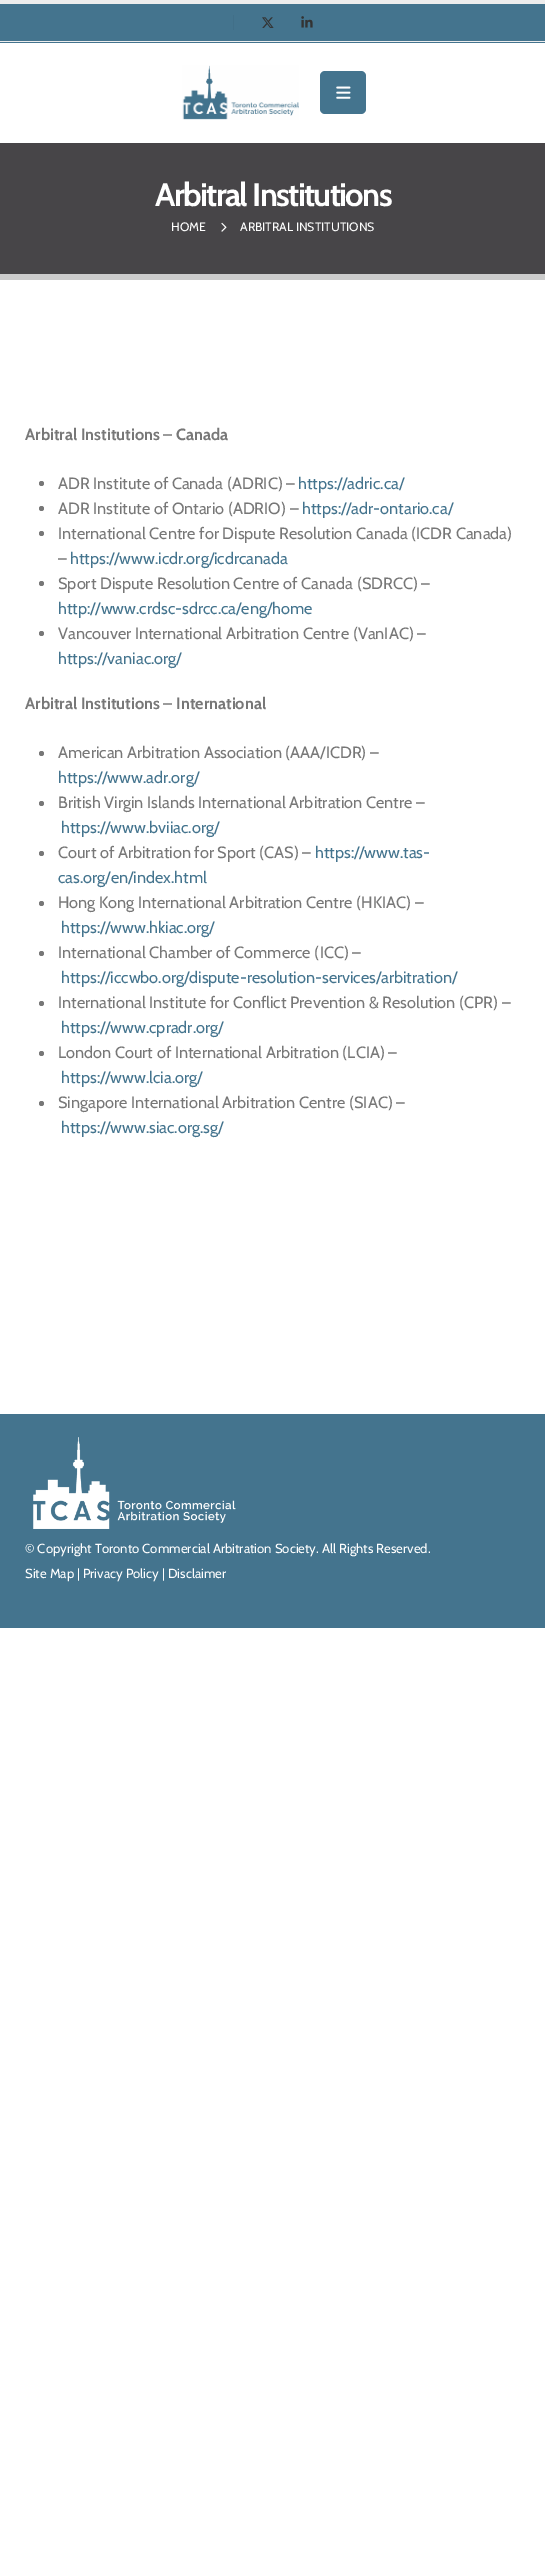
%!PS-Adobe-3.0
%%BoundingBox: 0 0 545 2571
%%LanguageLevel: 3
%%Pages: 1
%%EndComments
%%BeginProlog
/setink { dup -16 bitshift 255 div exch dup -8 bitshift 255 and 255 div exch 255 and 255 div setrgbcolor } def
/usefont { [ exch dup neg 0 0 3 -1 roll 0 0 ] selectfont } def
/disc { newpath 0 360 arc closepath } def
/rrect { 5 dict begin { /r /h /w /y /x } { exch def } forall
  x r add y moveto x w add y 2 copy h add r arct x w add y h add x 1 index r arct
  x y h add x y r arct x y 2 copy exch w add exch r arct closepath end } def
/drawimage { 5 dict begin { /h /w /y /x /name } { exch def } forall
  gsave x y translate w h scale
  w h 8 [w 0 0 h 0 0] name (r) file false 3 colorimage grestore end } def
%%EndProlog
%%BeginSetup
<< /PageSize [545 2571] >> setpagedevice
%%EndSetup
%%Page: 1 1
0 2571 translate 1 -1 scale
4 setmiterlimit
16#FFFFFF setink
0 0 545 2571 rectfill
[
    [0 0 545 4 16#EDEDED]
    [0 4 545 39 16#44748E]
    [0 41 545 1 16#EDEDED]
    [233 15 1 15 16#416F88]
] { aload pop setink rectfill } forall
(img1.raw) 262 17 12 11 drawimage
(img2.raw) 301 16 12 12 drawimage
(img3.raw) 182 65 117 55 drawimage
16#44748E setink
320 71 46 43 5 rrect fill
(img4.raw) 336 86 15 13 drawimage
16#474548 setink
0 143 545 131 rectfill
16#CCCCCC setink
0 274 545 6 rectfill
/Cabin-Bold 32.5 usefont
16#FFFFFF setink
155 206 moveto -1.6 0 (Arbitral Institutions) ashow
/Cabin-Regular 12.25 usefont
171 231 moveto (HOME) show
(img5.raw) 221 222 6 10 drawimage
240 231 moveto (ARBITRAL INSTITUTIONS) show
/Cabin-Bold 16.25 usefont
16#777777 setink
25 440 moveto (Arbitral Institutions – Canada) show
41.5 483.5 2.5 disc fill
/Cabin-Regular 16.25 usefont
58 489 moveto (ADR Institute of Canada \(ADRIC\) –) show
16#44748E setink
298 489 moveto (https://adric.ca/) show
16#777777 setink
41.5 508.5 2.5 disc fill
58 514 moveto (ADR Institute of Ontario \(ADRIO\) –) show
16#44748E setink
302 514 moveto (https://adr-ontario.ca/) show
16#777777 setink
41.5 533.5 2.5 disc fill
58 539 moveto (International Centre for Dispute Resolution Canada \(ICDR Canada\)) show
58 564 moveto (–) show
16#44748E setink
70 564 moveto (https://www.icdr.org/icdrcanada) show
16#777777 setink
41.5 583.5 2.5 disc fill
58 589 moveto (Sport Dispute Resolution Centre of Canada \(SDRCC\) –) show
16#44748E setink
58 614 moveto (http://www.crdsc-sdrcc.ca/eng/home) show
16#777777 setink
41.5 633.5 2.5 disc fill
58 639 moveto (Vancouver International Arbitration Centre \(VanIAC\) –) show
16#44748E setink
58 664 moveto (https://vaniac.org/) show
/Cabin-Bold 16.25 usefont
16#777777 setink
25 709 moveto (Arbitral Institutions – International) show
41.5 753.5 2.5 disc fill
/Cabin-Regular 16.25 usefont
58 758 moveto (American Arbitration Association \(AAA/ICDR\) –) show
16#44748E setink
58 783 moveto (https://www.adr.org/) show
16#777777 setink
41.5 803.5 2.5 disc fill
58 808 moveto (British Virgin Islands International Arbitration Centre –) show
16#44748E setink
61 833 moveto (https://www.bviiac.org/) show
16#777777 setink
41.5 853.5 2.5 disc fill
58 858 moveto (Court of Arbitration for Sport \(CAS\) –) show
16#44748E setink
315 858 moveto (https://www.tas-) show
58 883 moveto (cas.org/en/index.html) show
16#777777 setink
41.5 903.5 2.5 disc fill
58 908 moveto (Hong Kong International Arbitration Centre \(HKIAC\) –) show
16#44748E setink
61 933 moveto (https://www.hkiac.org/) show
16#777777 setink
41.5 953.5 2.5 disc fill
58 958 moveto (International Chamber of Commerce \(ICC\) –) show
16#44748E setink
61 983 moveto (https://iccwbo.org/dispute-resolution-services/arbitration/) show
16#777777 setink
41.5 1003.5 2.5 disc fill
58 1008 moveto (International Institute for Conflict Prevention & Resolution \(CPR\) –) show
16#44748E setink
61 1033 moveto (https://www.cpradr.org/) show
16#777777 setink
41.5 1053.5 2.5 disc fill
58 1058 moveto (London Court of International Arbitration \(LCIA\) –) show
16#44748E setink
61 1083 moveto (https://www.lcia.org/) show
16#777777 setink
41.5 1103.5 2.5 disc fill
58 1108 moveto (Singapore International Arbitration Centre \(SIAC\) –) show
16#44748E setink
61 1133 moveto (https://www.siac.org.sg/) show
0 1414 545 214 rectfill
(img6.raw) 33 1437 203 92 drawimage
/Cabin-Regular 13.15 usefont
16#FFFFFF setink
25 1553 moveto (© Copyright Toronto Commercial Arbitration Society. All Rights Reserved.) show
25 1578 moveto (Site Map | Privacy Policy | Disclaimer) show
showpage
%%EOF
